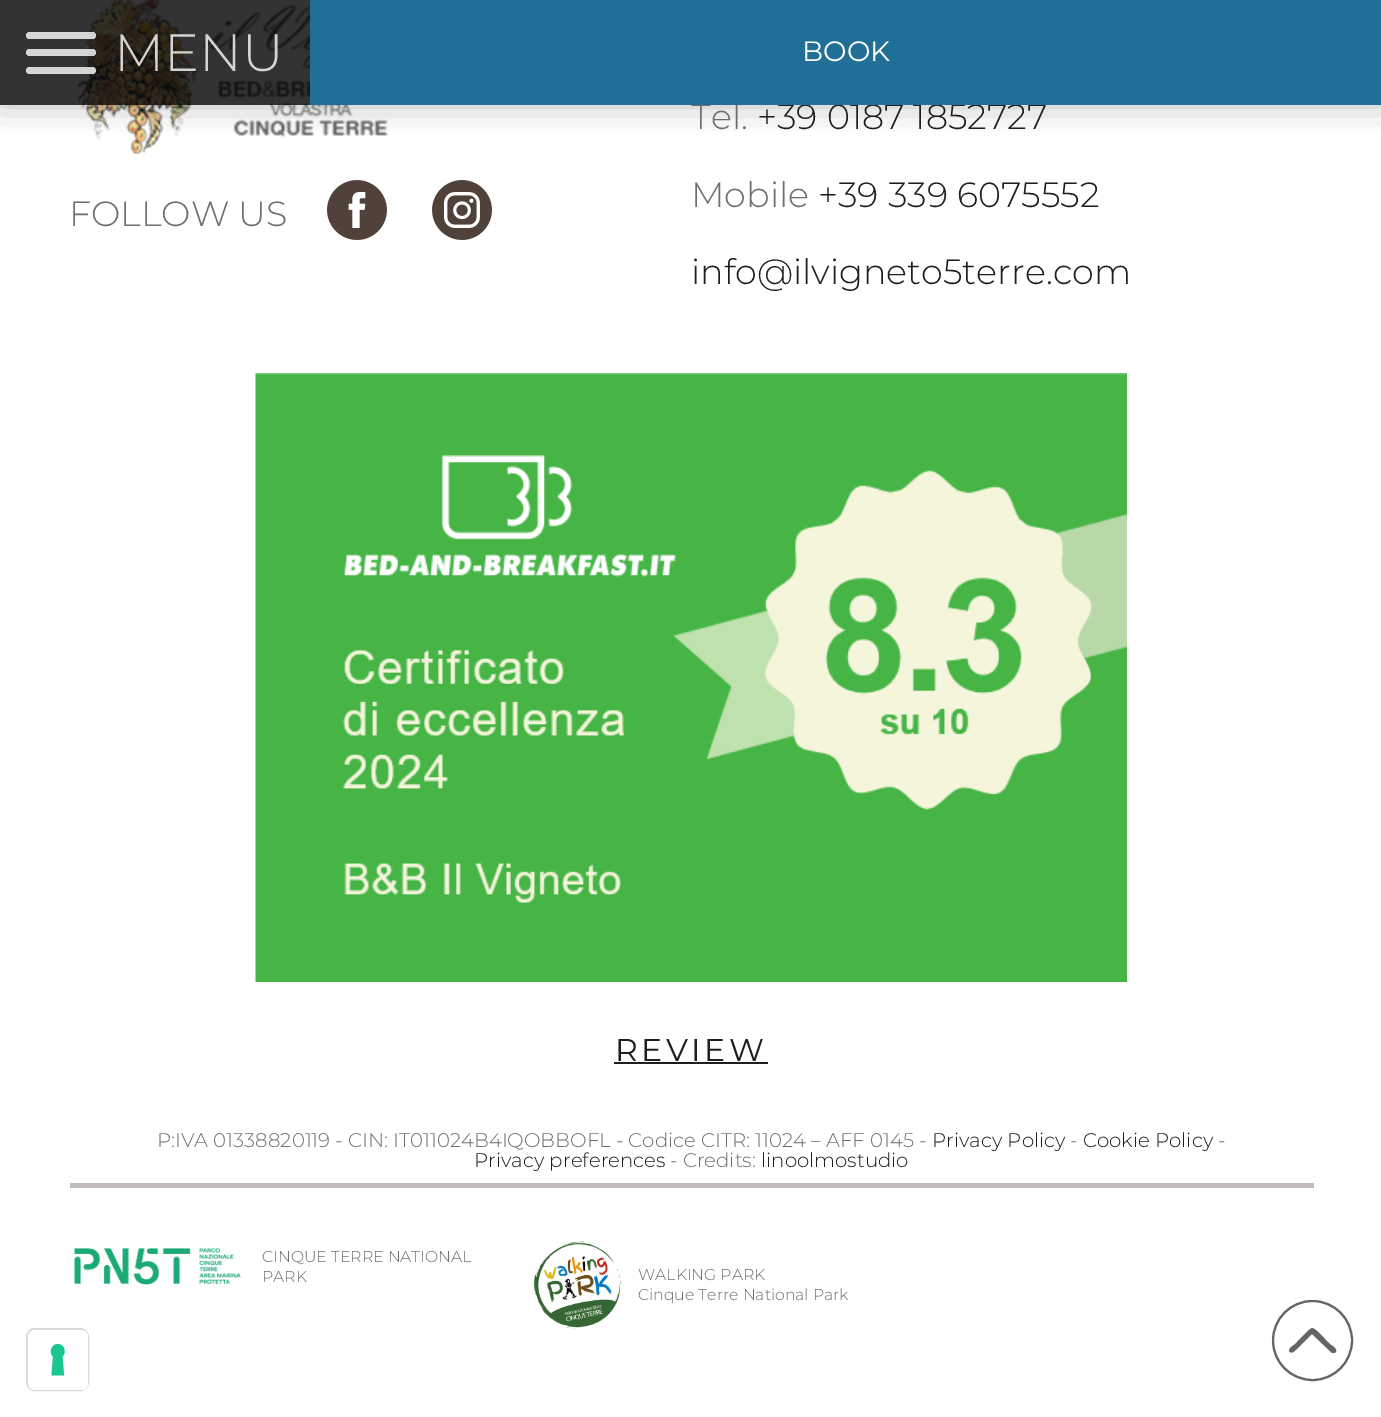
%!PS-Adobe-3.0
%%BoundingBox: 0 0 1381 1417
%%LanguageLevel: 3
%%Pages: 1
%%EndComments
%%BeginProlog
/setink { dup -16 bitshift 255 div exch dup -8 bitshift 255 and 255 div exch 255 and 255 div setrgbcolor } def
/usefont { [ exch dup neg 0 0 3 -1 roll 0 0 ] selectfont } def
/setalpha { dup .setfillconstantalpha .setstrokeconstantalpha } def
/disc { newpath 0 360 arc closepath } def
/rrect { 5 dict begin { /r /h /w /y /x } { exch def } forall
  x r add y moveto x w add y 2 copy h add r arct x w add y h add x 1 index r arct
  x y h add x y r arct x y 2 copy exch w add exch r arct closepath end } def
/softshadow { 12 dict begin { /a /b /q /h /w /y /x } { exch def } forall gsave /was 0 def
  9 -2 -9 { dup b mul 4 div /e exch def 1 sub .425 mul 2.718 exch exp 1 add a .99 .min exch div /now exch def
    1 1 now sub 1 was sub div sub setalpha /was now def
    w h .min e 2 mul add 0 gt { x e sub y e sub w e 2 mul add h e 2 mul add
      q e add b .6 mul add w h .min 2 div e add .min 0 .max rrect fill } if } for grestore end } def
/drawimage { 5 dict begin { /h /w /y /x /name } { exch def } forall
  gsave x y translate w h scale
  w h 8 [w 0 0 h 0 0] name (r) file false 3 colorimage grestore end } def
%%EndProlog
%%BeginSetup
<< /PageSize [1381 1417] /PageUsesTransparency true >> setpagedevice
%%EndSetup
%%Page: 1 1
0 .pushpdf14devicefilter
0 1417 translate 1 -1 scale
4 setmiterlimit
16#FFFFFF setink
0 0 1381 1417 rectfill
(img1.raw) 78 0 310 154 drawimage
gsave
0 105 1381 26 rectclip
16#1E1E1E setink
0 0 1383 105 0 17.5 0.3 softshadow
grestore
0.8 setalpha
16#000000 setink
0 0 310 105 rectfill
16#FFFFFF setink
26 32 70 7 3.5 rrect fill
26 49 70 7 3.5 rrect fill
26 67 70 7 3.5 rrect fill
/Montserrat-Light 52.5 usefont
1 setalpha
16#D5D4D3 setink
114 71 moveto (MENU) show
/Montserrat-Light 35 usefont
16#716D6A setink
691 129 moveto (Tel.) show
16#1E1E1E setink
757 129 moveto (+39 0187 1852727) show
16#1F6F97 setink
310 0 1071 105 rectfill
/Montserrat-Regular 28 usefont
16#FFFFFF setink
802 61 moveto (BOOK) show
/Montserrat-Light 35 usefont
16#716D6A setink
69 226 moveto (FOLLOW US) show
(img2.raw) 327 180 60 60 drawimage
(img3.raw) 432 180 60 60 drawimage
691 207 moveto (Mobile) show
16#1E1E1E setink
818 207 moveto (+39 339 6075552) show
691 284 moveto (info@ilvigneto5terre.com) show
(img4.raw) 255 373 872 609 drawimage
/Montserrat-Regular 31.5 usefont
615 1061 moveto 3.5 0 (REVIEW) ashow
614 1062 154 2 rectfill
16#C0BBB8 setink
70 1183 1244 5 rectfill
/Montserrat-Light 19.75 usefont
16#716D6A setink
157 1147 moveto (P:IVA 01338820119 - CIN: IT011024B4IQOBBOFL - Codice CITR: 11024 – AFF 0145 -) show
16#1E1E1E setink
932 1147 moveto (Privacy Policy) show
16#716D6A setink
1070 1147 moveto (-) show
16#1E1E1E setink
1083 1147 moveto (Cookie Policy) show
16#716D6A setink
1218 1147 moveto (-) show
16#1E1E1E setink
474 1167 moveto (Privacy preferences) show
16#716D6A setink
670 1167 moveto (- Credits:) show
16#1E1E1E setink
761 1167 moveto (linoolmostudio) show
(img5.raw) 74 1248 167 37 drawimage
/Montserrat-Light 15.75 usefont
16#716D6A setink
262 1262 moveto (CINQUE TERRE NATIONAL) show
262 1282 moveto (PARK) show
(img6.raw) 533 1241 89 88 drawimage
638 1280 moveto (WALKING PARK) show
638 1300 moveto (Cinque Terre National Park) show
16#D9D9D9 setink
2 setlinewidth
27 1329 61 61 8 rrect stroke
16#FFFFFF setink
28 1330 60 60 7 rrect fill
16#1CC691 setink
58 1344 moveto 64 1344 67 1352 62.5 1356.5 curveto 64 1375.5 lineto 51.5 1375.5 lineto 53 1356.5 lineto 48.5 1352 51.5 1344 58 1344 curveto closepath eofill
16#656565 setink
2.1 setlinewidth
1312.5 1340.5 39.5 disc stroke
1312 1328 moveto 1310 1328 1299 1340 1297 1342 curveto 1294 1345 lineto 1292 1346 1287 1350 1290 1352 curveto 1293 1354 1295 1350 1297 1349 curveto 1312 1334 lineto 1332 1353 lineto 1333 1353 1335 1353 1336 1352 curveto 1337 1349 1333 1346 1331 1345 curveto 1325 1339 lineto 1323 1337 1315 1328 1312 1328 curveto closepath fill
.poppdf14devicefilter showpage
%%EOF
